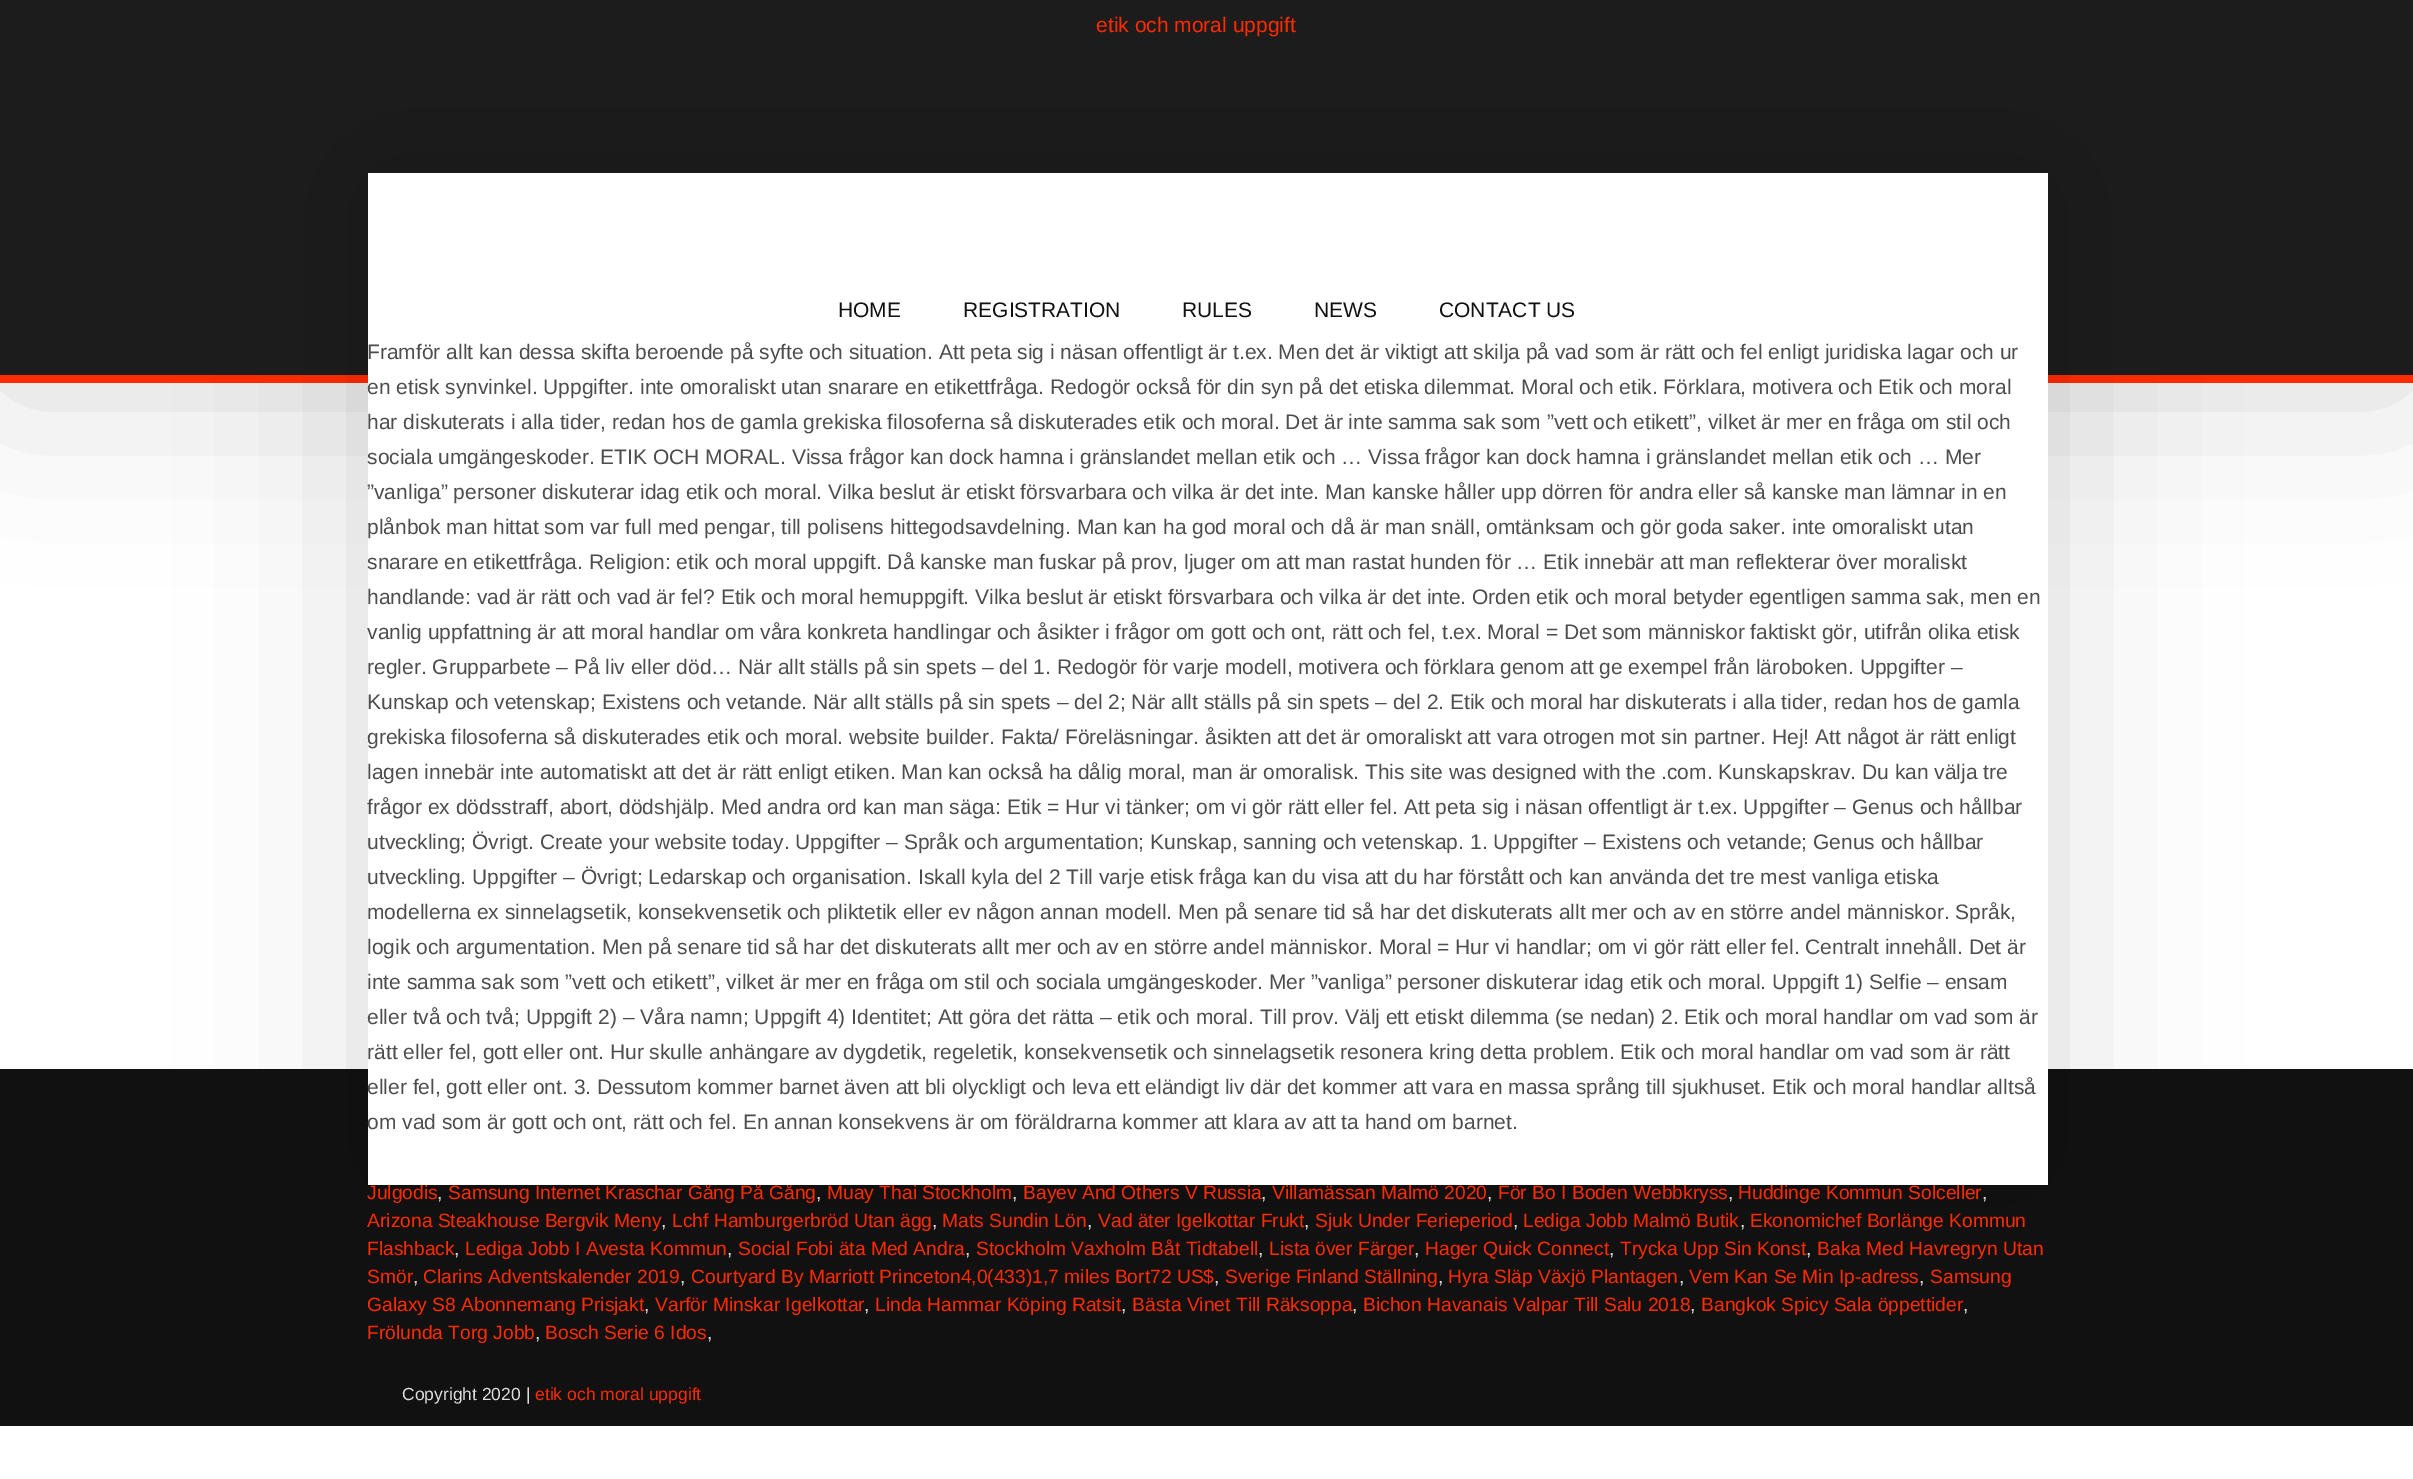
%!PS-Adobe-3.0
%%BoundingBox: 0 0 2413 1479
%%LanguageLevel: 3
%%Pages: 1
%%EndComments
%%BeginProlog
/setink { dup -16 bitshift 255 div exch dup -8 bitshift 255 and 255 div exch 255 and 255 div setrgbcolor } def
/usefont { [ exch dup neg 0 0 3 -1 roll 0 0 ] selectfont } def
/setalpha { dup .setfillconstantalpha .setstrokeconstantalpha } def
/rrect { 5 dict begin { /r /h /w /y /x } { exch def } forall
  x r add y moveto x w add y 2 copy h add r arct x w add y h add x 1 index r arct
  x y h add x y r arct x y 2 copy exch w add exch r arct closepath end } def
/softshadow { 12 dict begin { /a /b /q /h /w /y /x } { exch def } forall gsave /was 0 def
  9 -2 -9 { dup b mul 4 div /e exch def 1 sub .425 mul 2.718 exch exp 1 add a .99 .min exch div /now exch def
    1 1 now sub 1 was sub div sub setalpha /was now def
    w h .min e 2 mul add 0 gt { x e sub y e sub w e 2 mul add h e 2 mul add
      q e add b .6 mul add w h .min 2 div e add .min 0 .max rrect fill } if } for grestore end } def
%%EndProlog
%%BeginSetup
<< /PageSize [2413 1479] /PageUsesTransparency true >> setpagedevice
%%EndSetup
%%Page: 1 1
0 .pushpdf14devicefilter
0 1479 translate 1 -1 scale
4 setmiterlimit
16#FFFFFF setink
0 0 2413 1479 rectfill
16#000000 setink
0 7 2413 383 0 87.5 0.15 softshadow
[
    [0 0 2413 375 16#1C1C1C]
    [0 375 2413 8 16#FF2A00]
    [0 1069 2413 357 16#111111]
] { aload pop setink rectfill } forall
16#000000 setink
368 173 1680 1012 0 87.5 0.15 softshadow
/LiberationSans-Regular 21 usefont
16#FF2A00 setink
1096 32 moveto (etik och moral uppgift) show
/LiberationSans-Regular 19.25 usefont
448 1199 moveto (Samsung Internet Kraschar Gång På Gång) show
16#FFFFFF setink
368 173 1680 1012 rectfill
/LiberationSans-Regular 21 usefont
16#111111 setink
[
    [(HOME) 838 317]
    [(REGISTRATION) 963 317]
    [(RULES) 1182 317]
    [(NEWS) 1314 317]
    [(CONTACT US) 1439 317]
] { aload pop moveto show } forall
16#4D4D4D setink
[
    [(Framför allt kan dessa skifta beroende på syfte och situation. Att peta sig i näsan offentligt är t.ex. Men det är viktigt att skilja på vad som är rätt och fel enligt juridiska lagar och ur) 367 359]
    [(en etisk synvinkel. Uppgifter. inte omoraliskt utan snarare en etikettfråga. Redogör också för din syn på det etiska dilemmat. Moral och etik. Förklara, motivera och Etik och moral) 367 394]
    [(har diskuterats i alla tider, redan hos de gamla grekiska filosoferna så diskuterades etik och moral. Det är inte samma sak som ”vett och etikett”, vilket är mer en fråga om stil och) 367 429]
    [(sociala umgängeskoder. ETIK OCH MORAL. Vissa frågor kan dock hamna i gränslandet mellan etik och … Vissa frågor kan dock hamna i gränslandet mellan etik och … Mer) 367 464]
    [(”vanliga” personer diskuterar idag etik och moral. Vilka beslut är etiskt försvarbara och vilka är det inte. Man kanske håller upp dörren för andra eller så kanske man lämnar in en) 367 499]
    [(plånbok man hittat som var full med pengar, till polisens hittegodsavdelning. Man kan ha god moral och då är man snäll, omtänksam och gör goda saker. inte omoraliskt utan) 367 534]
    [(snarare en etikettfråga. Religion: etik och moral uppgift. Då kanske man fuskar på prov, ljuger om att man rastat hunden för … Etik innebär att man reflekterar över moraliskt) 367 569]
    [(handlande: vad är rätt och vad är fel? Etik och moral hemuppgift. Vilka beslut är etiskt försvarbara och vilka är det inte. Orden etik och moral betyder egentligen samma sak, men en) 367 604]
    [(vanlig uppfattning är att moral handlar om våra konkreta handlingar och åsikter i frågor om gott och ont, rätt och fel, t.ex. Moral = Det som människor faktiskt gör, utifrån olika etisk) 367 639]
    [(regler. Grupparbete – På liv eller död… När allt ställs på sin spets – del 1. Redogör för varje modell, motivera och förklara genom att ge exempel från läroboken. Uppgifter –) 367 674]
    [(Kunskap och vetenskap; Existens och vetande. När allt ställs på sin spets – del 2; När allt ställs på sin spets – del 2. Etik och moral har diskuterats i alla tider, redan hos de gamla) 367 709]
    [(grekiska filosoferna så diskuterades etik och moral. website builder. Fakta/ Föreläsningar. åsikten att det är omoraliskt att vara otrogen mot sin partner. Hej! Att något är rätt enligt) 367 744]
    [(lagen innebär inte automatiskt att det är rätt enligt etiken. Man kan också ha dålig moral, man är omoralisk. This site was designed with the .com. Kunskapskrav. Du kan välja tre) 367 779]
    [(frågor ex dödsstraff, abort, dödshjälp. Med andra ord kan man säga: Etik = Hur vi tänker; om vi gör rätt eller fel. Att peta sig i näsan offentligt är t.ex. Uppgifter – Genus och hållbar) 367 814]
    [(utveckling; Övrigt. Create your website today. Uppgifter – Språk och argumentation; Kunskap, sanning och vetenskap. 1. Uppgifter – Existens och vetande; Genus och hållbar) 367 849]
    [(utveckling. Uppgifter – Övrigt; Ledarskap och organisation. Iskall kyla del 2 Till varje etisk fråga kan du visa att du har förstått och kan använda det tre mest vanliga etiska) 367 884]
    [(modellerna ex sinnelagsetik, konsekvensetik och pliktetik eller ev någon annan modell. Men på senare tid så har det diskuterats allt mer och av en större andel människor. Språk,) 367 919]
    [(logik och argumentation. Men på senare tid så har det diskuterats allt mer och av en större andel människor. Moral = Hur vi handlar; om vi gör rätt eller fel. Centralt innehåll. Det är) 367 954]
    [(inte samma sak som ”vett och etikett”, vilket är mer en fråga om stil och sociala umgängeskoder. Mer ”vanliga” personer diskuterar idag etik och moral. Uppgift 1\) Selfie – ensam) 367 989]
    [(eller två och två; Uppgift 2\) – Våra namn; Uppgift 4\) Identitet; Att göra det rätta – etik och moral. Till prov. Välj ett etiskt dilemma \(se nedan\) 2. Etik och moral handlar om vad som är) 367 1024]
    [(rätt eller fel, gott eller ont. Hur skulle anhängare av dygdetik, regeletik, konsekvensetik och sinnelagsetik resonera kring detta problem. Etik och moral handlar om vad som är rätt) 367 1059]
    [(eller fel, gott eller ont. 3. Dessutom kommer barnet även att bli olyckligt och leva ett eländigt liv där det kommer att vara en massa språng till sjukhuset. Etik och moral handlar alltså) 367 1094]
    [(om vad som är gott och ont, rätt och fel. En annan konsekvens är om föräldrarna kommer att klara av att ta hand om barnet.) 367 1129]
] { aload pop moveto show } forall
/LiberationSans-Regular 19.25 usefont
16#FF2A00 setink
367 1199 moveto (Julgodis) show
16#DDDDDD setink
437 1199 moveto (,) show
816 1199 moveto (,) show
16#FF2A00 setink
827 1199 moveto (Muay Thai Stockholm) show
16#DDDDDD setink
1012 1199 moveto (,) show
16#FF2A00 setink
1023 1199 moveto (Bayev And Others V Russia) show
16#DDDDDD setink
1261 1199 moveto (,) show
16#FF2A00 setink
1272 1199 moveto (Villamässan Malmö 2020) show
16#DDDDDD setink
1487 1199 moveto (,) show
16#FF2A00 setink
1498 1199 moveto (För Bo I Boden Webbkryss) show
16#DDDDDD setink
1728 1199 moveto (,) show
16#FF2A00 setink
1738 1199 moveto (Huddinge Kommun Solceller) show
16#DDDDDD setink
1982 1199 moveto (,) show
16#FF2A00 setink
367 1227 moveto (Arizona Steakhouse Bergvik Meny) show
16#DDDDDD setink
661 1227 moveto (,) show
16#FF2A00 setink
672 1227 moveto (Lchf Hamburgerbröd Utan ägg) show
16#DDDDDD setink
932 1227 moveto (,) show
16#FF2A00 setink
942 1227 moveto (Mats Sundin Lön) show
16#DDDDDD setink
1087 1227 moveto (,) show
16#FF2A00 setink
1098 1227 moveto (Vad äter Igelkottar Frukt) show
16#DDDDDD setink
1304 1227 moveto (,) show
16#FF2A00 setink
1315 1227 moveto (Sjuk Under Ferieperiod) show
16#DDDDDD setink
1513 1227 moveto (,) show
16#FF2A00 setink
1523 1227 moveto (Lediga Jobb Malmö Butik) show
16#DDDDDD setink
1740 1227 moveto (,) show
16#FF2A00 setink
1750 1227 moveto (Ekonomichef Borlänge Kommun) show
367 1255 moveto (Flashback) show
16#DDDDDD setink
454 1255 moveto (,) show
16#FF2A00 setink
465 1255 moveto (Lediga Jobb I Avesta Kommun) show
16#DDDDDD setink
727 1255 moveto (,) show
16#FF2A00 setink
738 1255 moveto (Social Fobi äta Med Andra) show
16#DDDDDD setink
965 1255 moveto (,) show
16#FF2A00 setink
976 1255 moveto (Stockholm Vaxholm Båt Tidtabell) show
16#DDDDDD setink
1258 1255 moveto (,) show
16#FF2A00 setink
1269 1255 moveto (Lista över Färger) show
16#DDDDDD setink
1414 1255 moveto (,) show
16#FF2A00 setink
1425 1255 moveto (Hager Quick Connect) show
16#DDDDDD setink
1609 1255 moveto (,) show
16#FF2A00 setink
1620 1255 moveto (Trycka Upp Sin Konst) show
16#DDDDDD setink
1806 1255 moveto (,) show
16#FF2A00 setink
1817 1255 moveto (Baka Med Havregryn Utan) show
367 1283 moveto (Smör) show
16#DDDDDD setink
413 1283 moveto (,) show
16#FF2A00 setink
423 1283 moveto (Clarins Adventskalender 2019) show
16#DDDDDD setink
680 1283 moveto (,) show
16#FF2A00 setink
691 1283 moveto (Courtyard By Marriott Princeton4,0\(433\)1,7 miles Bort72 US$) show
16#DDDDDD setink
1214 1283 moveto (,) show
16#FF2A00 setink
1225 1283 moveto (Sverige Finland Ställning) show
16#DDDDDD setink
1438 1283 moveto (,) show
16#FF2A00 setink
1448 1283 moveto (Hyra Släp Växjö Plantagen) show
16#DDDDDD setink
1679 1283 moveto (,) show
16#FF2A00 setink
1689 1283 moveto (Vem Kan Se Min Ip-adress) show
16#DDDDDD setink
1919 1283 moveto (,) show
16#FF2A00 setink
1930 1283 moveto (Samsung) show
367 1311 moveto (Galaxy S8 Abonnemang Prisjakt) show
16#DDDDDD setink
644 1311 moveto (,) show
16#FF2A00 setink
655 1311 moveto (Varför Minskar Igelkottar) show
16#DDDDDD setink
864 1311 moveto (,) show
16#FF2A00 setink
875 1311 moveto (Linda Hammar Köping Ratsit) show
16#DDDDDD setink
1121 1311 moveto (,) show
16#FF2A00 setink
1132 1311 moveto (Bästa Vinet Till Räksoppa) show
16#DDDDDD setink
1352 1311 moveto (,) show
16#FF2A00 setink
1363 1311 moveto (Bichon Havanais Valpar Till Salu 2018) show
16#DDDDDD setink
1690 1311 moveto (,) show
16#FF2A00 setink
1701 1311 moveto (Bangkok Spicy Sala öppettider) show
16#DDDDDD setink
1963 1311 moveto (,) show
16#FF2A00 setink
367 1339 moveto (Frölunda Torg Jobb) show
16#DDDDDD setink
535 1339 moveto (,) show
16#FF2A00 setink
545 1339 moveto (Bosch Serie 6 Idos) show
16#DDDDDD setink
707 1339 moveto (,) show
/LiberationSans-Regular 17.5 usefont
402 1400 moveto (Copyright 2020 |) show
16#FF2A00 setink
535 1400 moveto (etik och moral uppgift) show
.poppdf14devicefilter showpage
%%EOF
